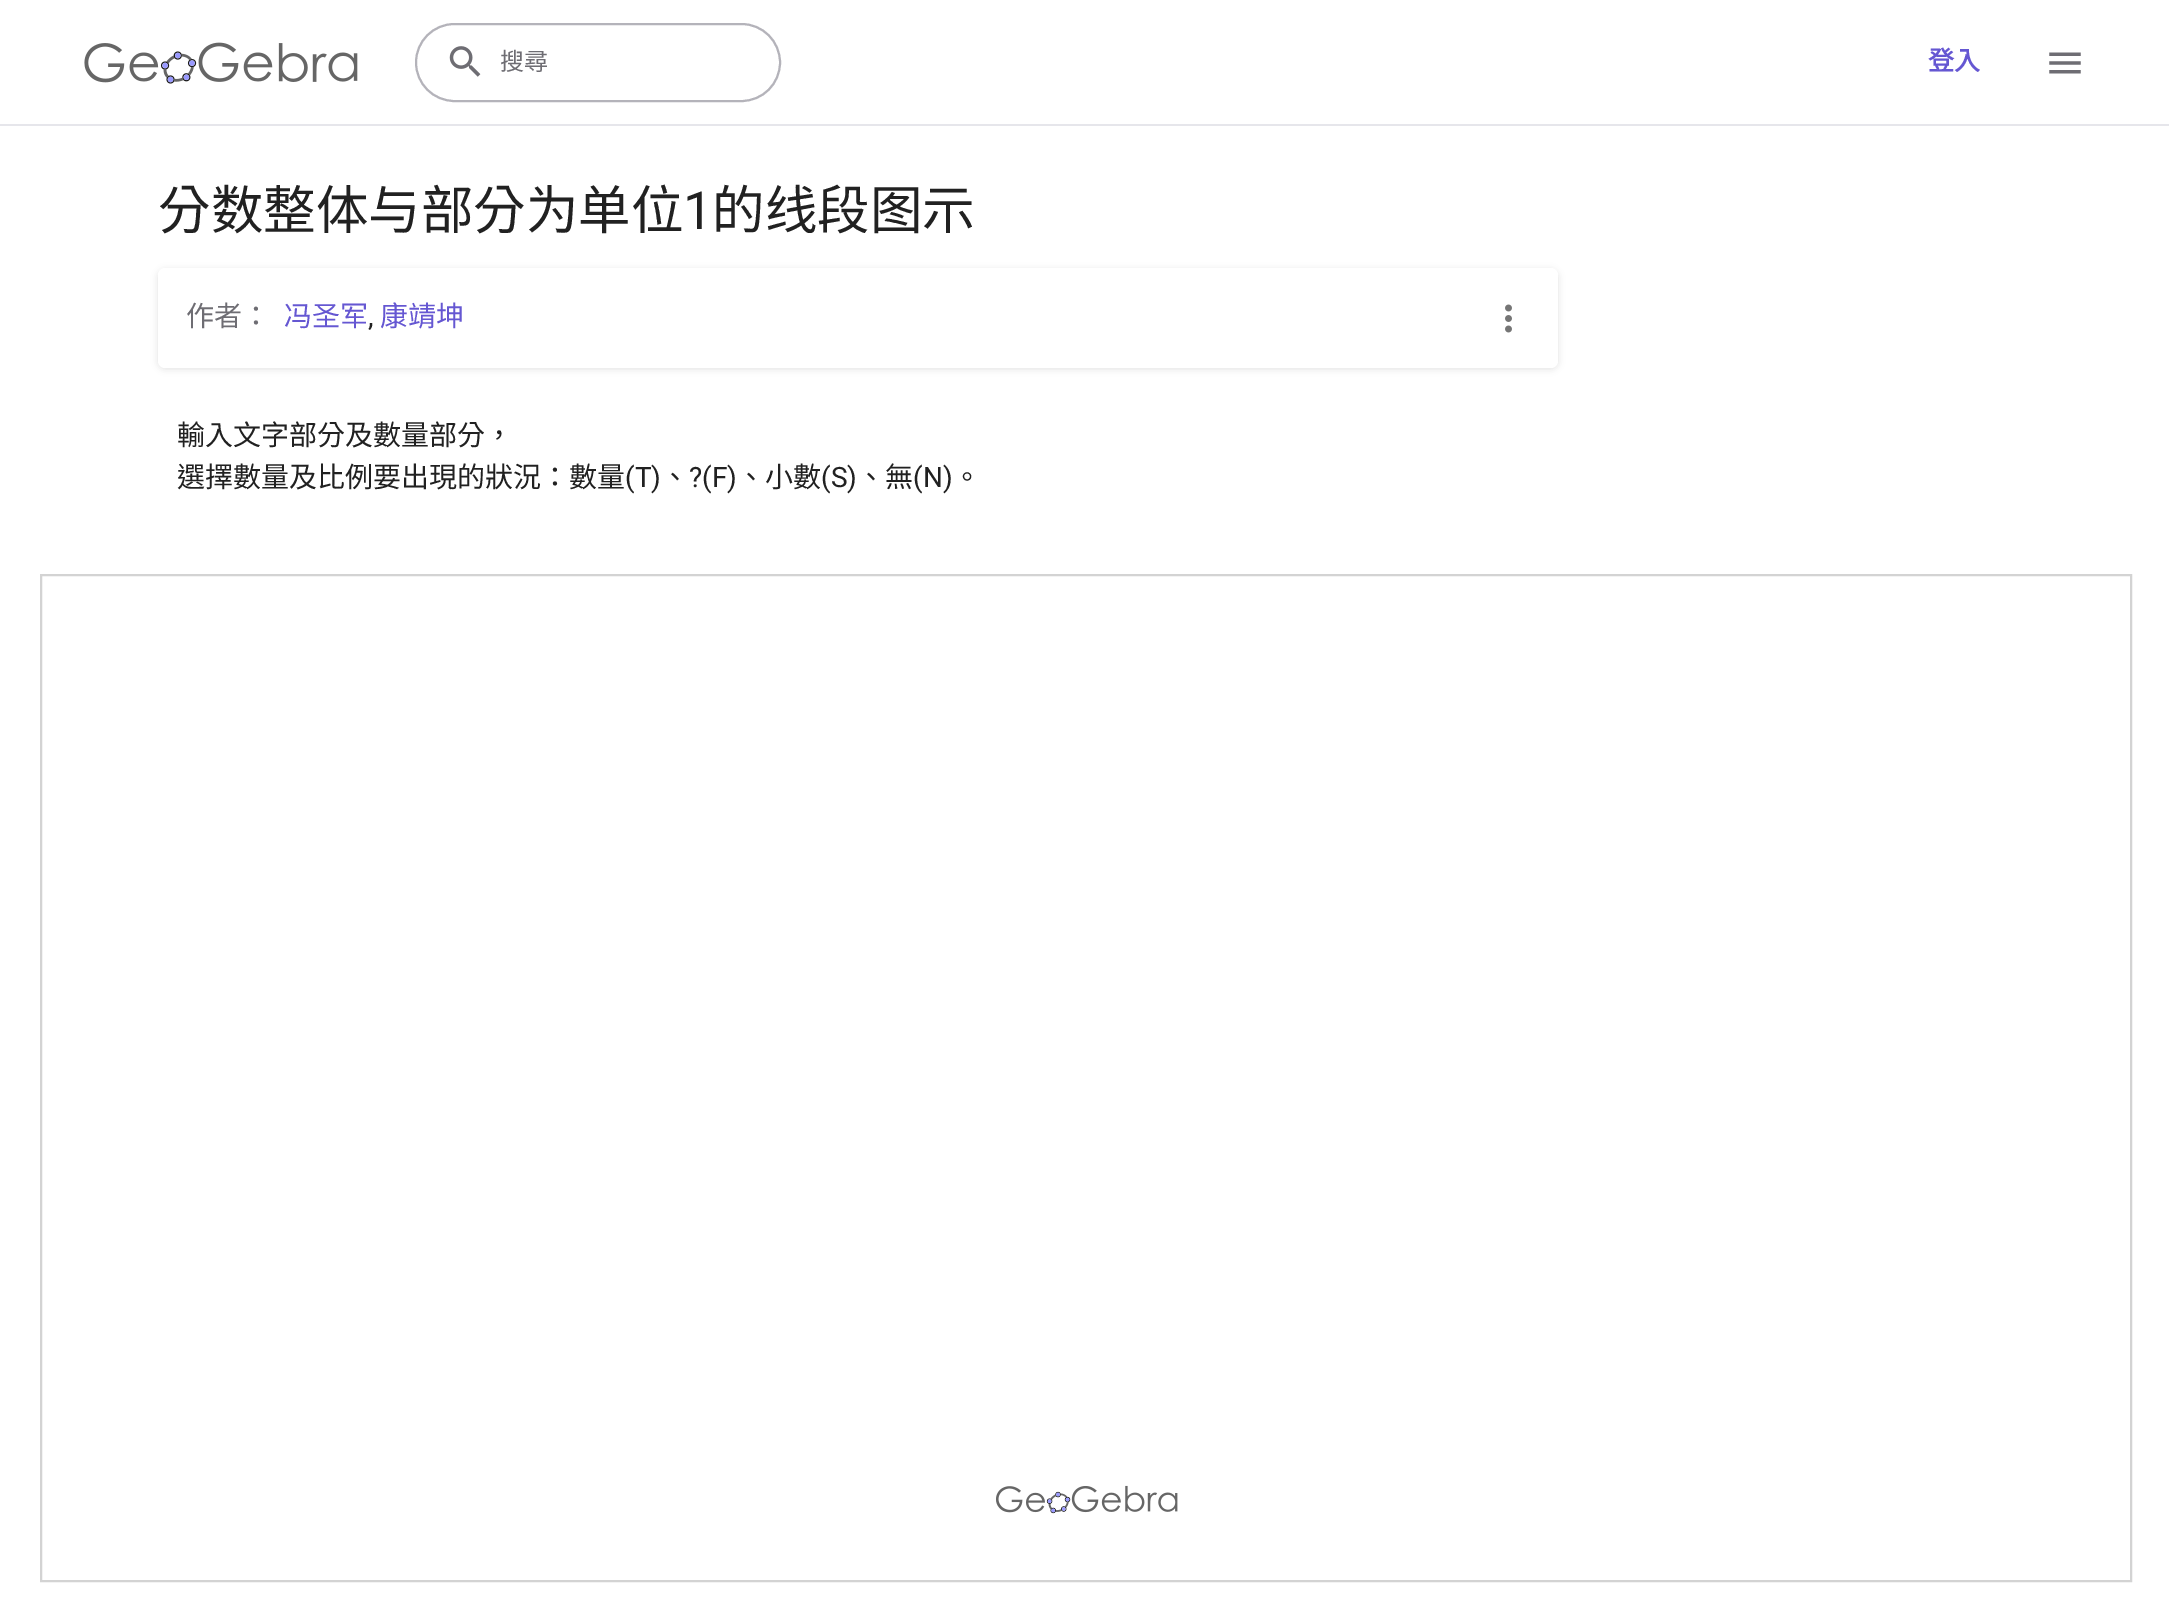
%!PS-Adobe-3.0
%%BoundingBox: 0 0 2169 1611
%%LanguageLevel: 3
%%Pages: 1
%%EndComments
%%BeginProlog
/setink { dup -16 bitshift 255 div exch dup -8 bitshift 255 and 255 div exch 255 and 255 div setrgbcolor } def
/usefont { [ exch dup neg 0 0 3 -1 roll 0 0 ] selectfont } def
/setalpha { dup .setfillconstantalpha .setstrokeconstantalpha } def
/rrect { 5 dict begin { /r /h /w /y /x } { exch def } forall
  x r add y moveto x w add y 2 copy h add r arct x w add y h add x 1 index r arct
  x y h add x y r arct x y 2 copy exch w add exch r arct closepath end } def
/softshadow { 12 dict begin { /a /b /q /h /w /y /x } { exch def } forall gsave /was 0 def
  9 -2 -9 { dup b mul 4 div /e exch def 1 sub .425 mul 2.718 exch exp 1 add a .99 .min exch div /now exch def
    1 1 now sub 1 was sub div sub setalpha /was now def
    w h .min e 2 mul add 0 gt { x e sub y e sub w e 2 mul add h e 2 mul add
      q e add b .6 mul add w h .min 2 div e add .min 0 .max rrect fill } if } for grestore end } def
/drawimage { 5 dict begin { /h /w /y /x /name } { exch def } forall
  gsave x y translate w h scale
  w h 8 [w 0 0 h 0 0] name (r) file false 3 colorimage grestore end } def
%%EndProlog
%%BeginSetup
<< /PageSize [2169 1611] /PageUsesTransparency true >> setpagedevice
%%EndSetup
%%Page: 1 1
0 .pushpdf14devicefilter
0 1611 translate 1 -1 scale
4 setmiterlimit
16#FFFFFF setink
0 0 2169 1611 rectfill
16#E6E6EB setink
0 124 2169 2 rectfill
(img1.raw) 84 42 274 42 drawimage
16#B4B3BA setink
2 setlinewidth
416 24 364 77 38.5 rrect stroke
(img2.raw) 449 46 32 31 drawimage
/NotoSansCJKTC-Regular 24 usefont
16#6E6D73 setink
500 70 moveto (搜尋) show
/NotoSansCJKTC-Bold 26 usefont
16#6557D2 setink
1928 70 moveto (登入) show
(img3.raw) 2049 52 32 22 drawimage
/NotoSansCJKTC-Regular 52.5 usefont
16#212121 setink
158 229 moveto (分数整体与部分为单位) show
/Roboto-Regular 52.5 usefont
683 229 moveto (1) show
/NotoSansCJKTC-Regular 52.5 usefont
712 229 moveto (的线段图示) show
16#1C1C1F setink
158 270 1400 99 7 3.5 0.14 softshadow
16#FFFFFF setink
158 268 1400 100 7 rrect fill
/NotoSansCJKTC-Regular 28 usefont
16#6E6D73 setink
186 326 moveto (作者：) show
16#6557D2 setink
284 326 moveto (冯圣军) show
/Roboto-Regular 28 usefont
16#212121 setink
368 326 moveto (,) show
/NotoSansCJKTC-Regular 28 usefont
16#6557D2 setink
380 326 moveto (康靖坤) show
(img4.raw) 1505 304 7 29 drawimage
16#212121 setink
177 445 moveto (輸入文字部分及數量部分，) show
177 487 moveto (選擇數量及比例要出現的狀況：數量) show
/Roboto-Regular 28 usefont
625 487 moveto (\(T\)) show
/NotoSansCJKTC-Regular 28 usefont
661 487 moveto (、) show
/Roboto-Regular 28 usefont
689 487 moveto (?\(F\)) show
/NotoSansCJKTC-Regular 28 usefont
737 487 moveto (、小數) show
/Roboto-Regular 28 usefont
821 487 moveto (\(S\)) show
/NotoSansCJKTC-Regular 28 usefont
857 487 moveto (、無) show
/Roboto-Regular 28 usefont
913 487 moveto (\(N\)) show
/NotoSansCJKTC-Regular 28 usefont
953 487 moveto (。) show
(img5.raw) 996 1485 182 29 drawimage
16#D3D3D3 setink
41 575 2090 1006 rectstroke
.poppdf14devicefilter showpage
%%EOF
